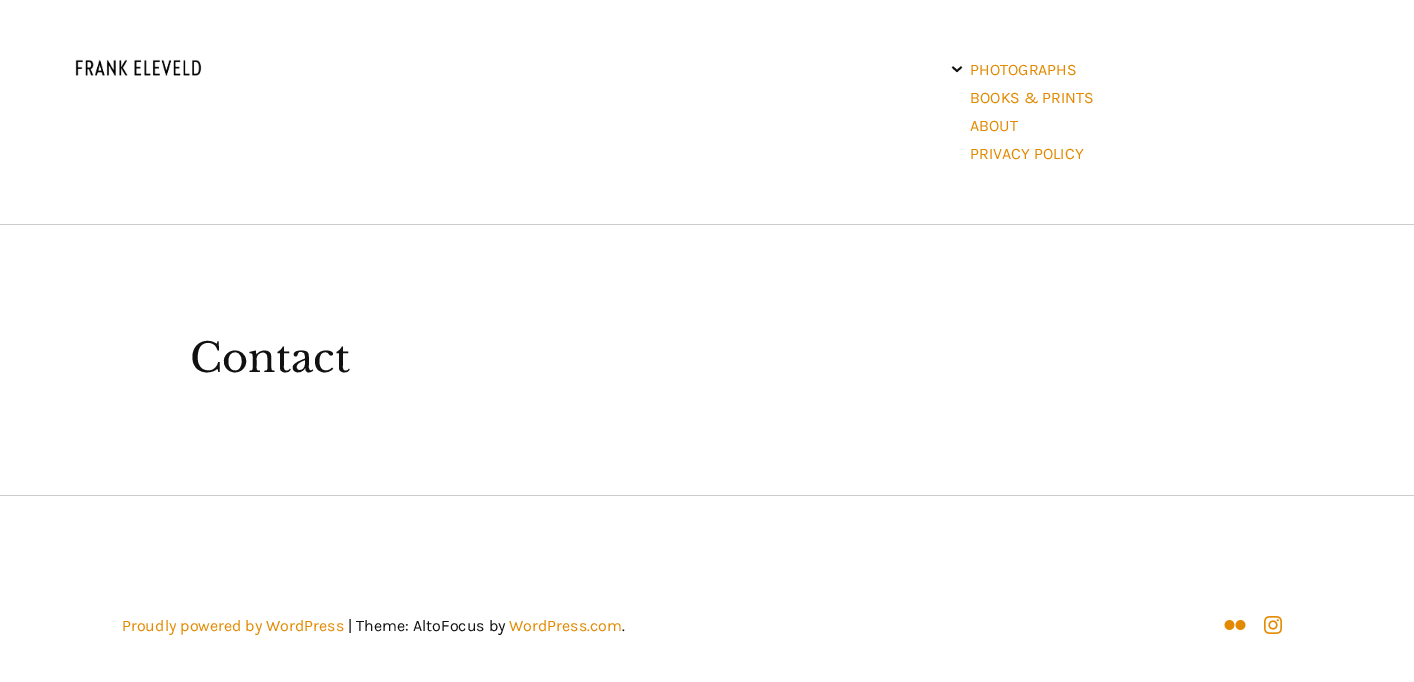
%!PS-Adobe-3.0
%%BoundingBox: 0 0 1414 682
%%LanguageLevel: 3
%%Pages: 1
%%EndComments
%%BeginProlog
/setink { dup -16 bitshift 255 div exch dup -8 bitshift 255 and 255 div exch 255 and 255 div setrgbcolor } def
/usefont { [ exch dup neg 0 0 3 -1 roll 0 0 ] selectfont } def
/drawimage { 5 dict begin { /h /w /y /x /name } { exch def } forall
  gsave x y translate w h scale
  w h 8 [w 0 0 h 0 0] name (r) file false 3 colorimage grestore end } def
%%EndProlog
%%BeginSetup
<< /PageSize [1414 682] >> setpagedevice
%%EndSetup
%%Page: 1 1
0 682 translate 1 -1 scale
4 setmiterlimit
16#FFFFFF setink
0 0 1414 682 rectfill
(img1.raw) 75 59 127 17 drawimage
16#111111 setink
1.8 setlinewidth
952.5 67 moveto 957 71 lineto 961.5 67 lineto stroke
/Karla-Regular 16 usefont
16#E38900 setink
[
    [(PHOTOGRAPHS) 970 75]
    [(BOOKS & PRINTS) 970 103]
    [(ABOUT) 970 131]
    [(PRIVACY POLICY) 970 159]
] { aload pop moveto show } forall
16#CCCCCC setink
0 224 1414 1 rectfill
/LibreBaskerville-Regular 40 usefont
16#111111 setink
190 372 moveto (Contact) show
16#CCCCCC setink
0 495 1414 1 rectfill
/Karla-Regular 16 usefont
16#E38900 setink
122 631 moveto (Proudly powered by WordPress) show
16#111111 setink
348 631 moveto (| Theme: AltoFocus by) show
16#E38900 setink
509 631 moveto (WordPress.com) show
16#111111 setink
622 631 moveto (.) show
(img2.raw) 1224 620 22 10 drawimage
(img3.raw) 1264 616 18 18 drawimage
showpage
%%EOF
